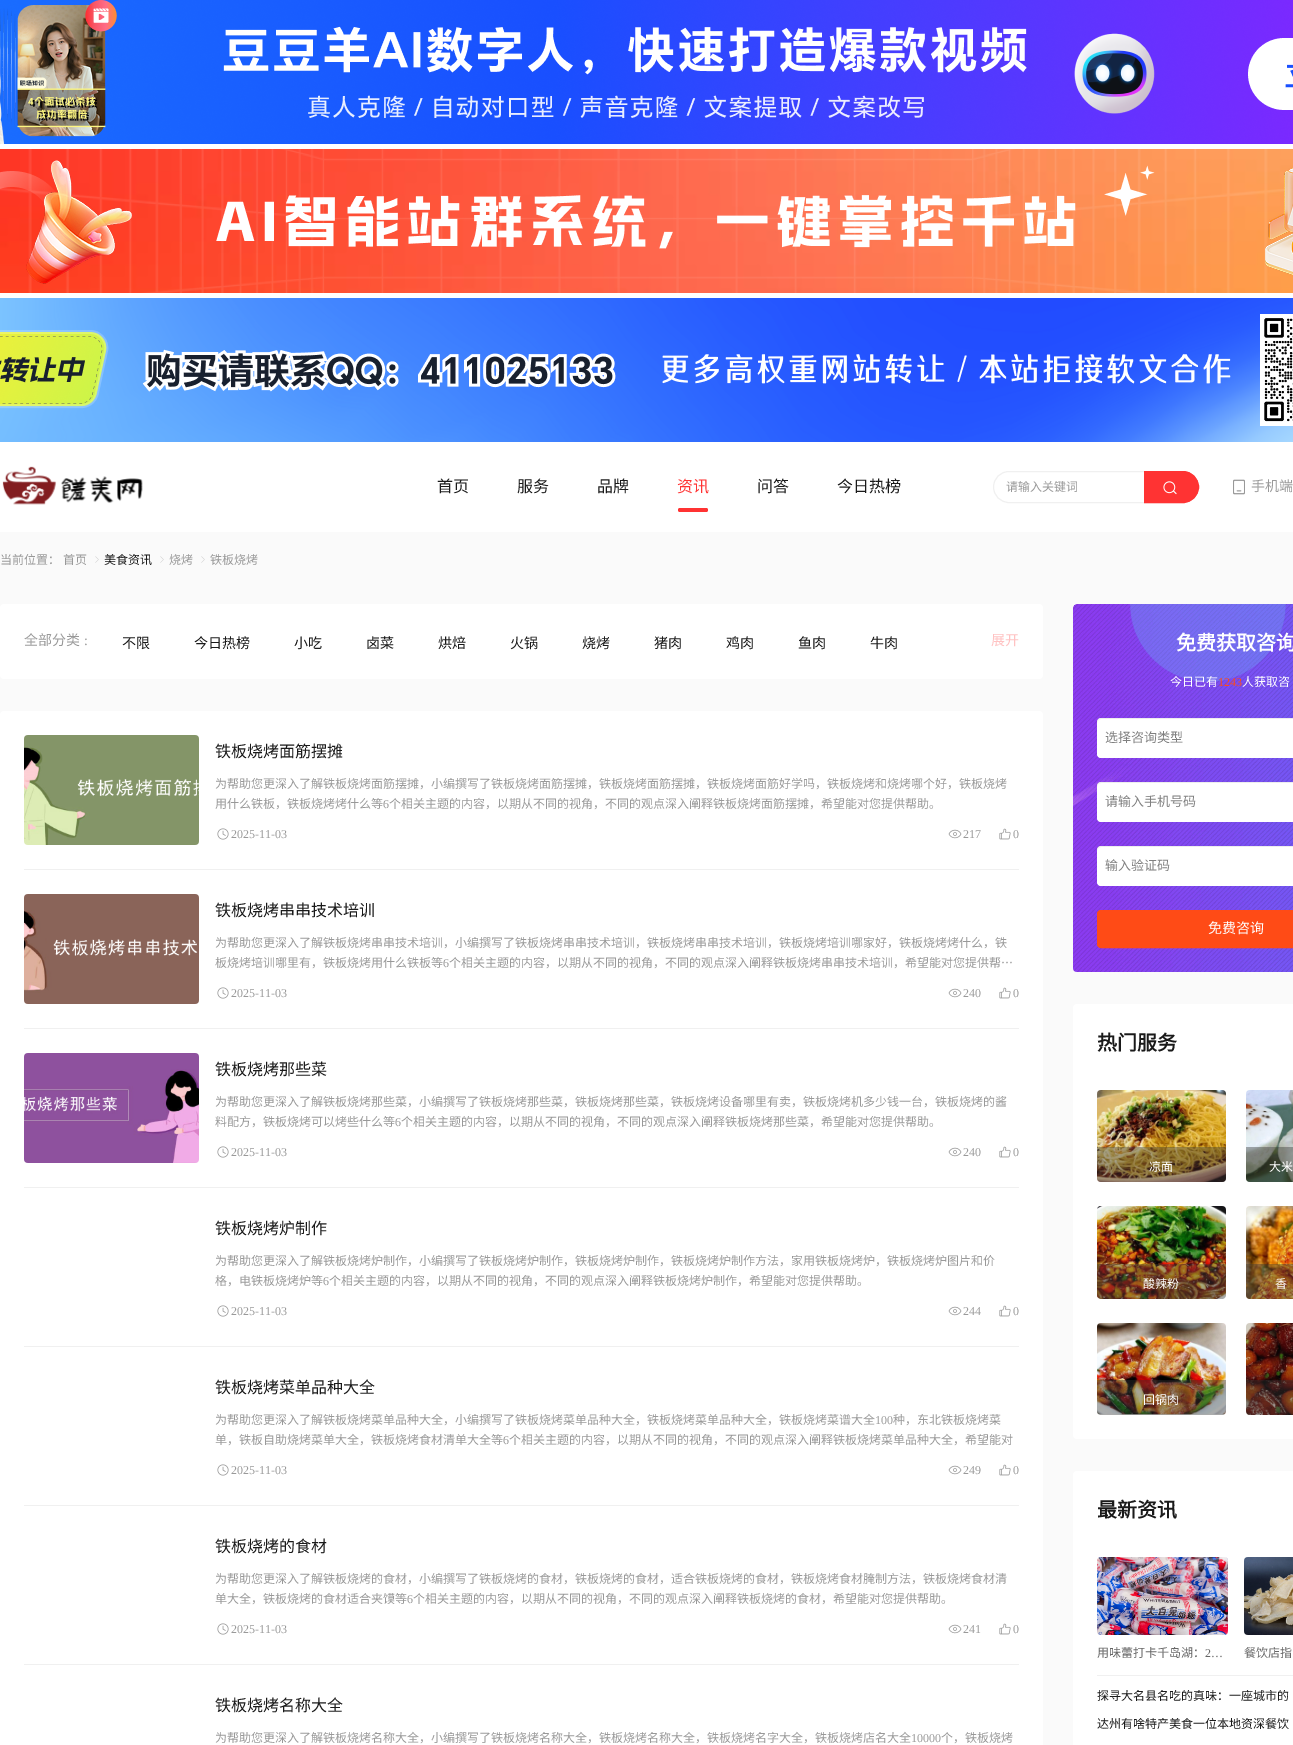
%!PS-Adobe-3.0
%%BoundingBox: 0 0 1293 1745
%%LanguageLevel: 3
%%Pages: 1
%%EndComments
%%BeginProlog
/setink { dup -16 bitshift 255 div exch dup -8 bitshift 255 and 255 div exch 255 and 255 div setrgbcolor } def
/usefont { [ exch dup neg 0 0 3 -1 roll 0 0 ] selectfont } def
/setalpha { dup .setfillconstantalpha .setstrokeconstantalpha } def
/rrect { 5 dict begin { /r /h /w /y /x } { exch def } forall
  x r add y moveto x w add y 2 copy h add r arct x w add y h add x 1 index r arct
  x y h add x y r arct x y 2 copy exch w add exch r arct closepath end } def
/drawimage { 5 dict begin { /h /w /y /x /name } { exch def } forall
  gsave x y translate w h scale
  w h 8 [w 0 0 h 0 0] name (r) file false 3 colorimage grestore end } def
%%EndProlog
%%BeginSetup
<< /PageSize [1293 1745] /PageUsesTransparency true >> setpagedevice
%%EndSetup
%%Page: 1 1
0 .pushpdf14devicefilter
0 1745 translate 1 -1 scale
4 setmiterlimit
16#FFFFFF setink
0 0 1293 1745 rectfill
(img1.raw) 0 0 1293 144 drawimage
(img2.raw) 0 149 1293 144 drawimage
(img3.raw) 0 298 1293 144 drawimage
(img4.raw) 2 466 141 39 drawimage
/NotoSansCJKSC-Regular 16 usefont
16#1A1A1A setink
[
    [(首页) 437 492]
    [(服务) 517 492]
    [(品牌) 597 492]
] { aload pop moveto show } forall
16#FF3333 setink
677 492 moveto (资讯) show
678 508 30 4 2 rrect fill
16#1A1A1A setink
757 492 moveto (问答) show
837 492 moveto (今日热榜) show
16#F0F0F0 setink
993.5 471.5 205 31 15.5 rrect stroke
/NotoSansCJKSC-Regular 12 usefont
16#999999 setink
1006 491 moveto (请输入关键词) show
16#FF3333 setink
1144.5 471.5 moveto 1183 471.5 lineto 1191.5 471.5 1198.5 478.5 1198.5 487 curveto 1198.5 495.5 1191.5 502.5 1183 502.5 curveto 1144.5 502.5 lineto closepath gsave fill grestore
stroke
(img5.raw) 1163 481 14 14 drawimage
(img6.raw) 1233 479 12 16 drawimage
/NotoSansCJKSC-Regular 14 usefont
16#999999 setink
1251 491 moveto (手机端) show
16#FAFAFA setink
0 532 1293 1213 rectfill
/NotoSansCJKSC-Regular 12 usefont
16#999999 setink
0 564 moveto (当前位置：) show
63 564 moveto (首页) show
(img7.raw) 95 556 4 7 drawimage
16#1A1A1A setink
104 564 moveto (美食资讯) show
(img7.raw) 160 556 4 7 drawimage
16#999999 setink
169 564 moveto (烧烤) show
(img7.raw) 201 556 4 7 drawimage
210 564 moveto (铁板烧烤) show
16#FFFFFF setink
0 604 1043 75 4 rrect fill
/NotoSansCJKSC-Regular 14 usefont
16#999999 setink
24 645 moveto (全部分类) show
/LiberationSerif-Regular 14 usefont
84 645 moveto (:) show
/NotoSansCJKSC-Regular 14 usefont
16#1A1A1A setink
[
    [(不限) 122 648]
    [(今日热榜) 194 648]
    [(小吃) 294 648]
    [(卤菜) 366 648]
    [(烘焙) 438 648]
    [(火锅) 510 648]
    [(烧烤) 582 648]
    [(猪肉) 654 648]
    [(鸡肉) 726 648]
    [(鱼肉) 798 648]
    [(牛肉) 870 648]
] { aload pop moveto show } forall
16#FFC2C2 setink
991 645 moveto (展开) show
16#FFFFFF setink
0 711 1043 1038 4 rrect fill
16#F0F0F0 setink
24 869 995 1 rectfill
(img8.raw) 24 735 175 110 drawimage
/NotoSansCJKSC-Regular 16 usefont
16#1A1A1A setink
215 757 moveto (铁板烧烤面筋摆摊) show
/NotoSansCJKSC-Regular 12 usefont
16#999999 setink
215 788 moveto (为帮助您更深入了解铁板烧烤面筋摆摊，小编撰写了铁板烧烤面筋摆摊，铁板烧烤面筋摆摊，铁板烧烤面筋好学吗，铁板烧烤和烧烤哪个好，铁板烧烤) show
215 808 moveto (用什么铁板，铁板烧烤烤什么等) show
/LiberationSerif-Regular 12 usefont
383 808 moveto (6) show
/NotoSansCJKSC-Regular 12 usefont
389 808 moveto (个相关主题的内容，以期从不同的视角，不同的观点深入阐释铁板烧烤面筋摆摊，希望能对您提供帮助。) show
(img9.raw) 217 828 12 12 drawimage
/LiberationSerif-Regular 12 usefont
231 838 moveto (2025-11-03) show
(img10.raw) 948 829 14 10 drawimage
963 838 moveto (217) show
(img11.raw) 999 828 12 12 drawimage
1013 838 moveto (0) show
16#F0F0F0 setink
24 1028 995 1 rectfill
(img12.raw) 24 894 175 110 drawimage
/NotoSansCJKSC-Regular 16 usefont
16#1A1A1A setink
215 916 moveto (铁板烧烤串串技术培训) show
/NotoSansCJKSC-Regular 12 usefont
16#999999 setink
215 947 moveto (为帮助您更深入了解铁板烧烤串串技术培训，小编撰写了铁板烧烤串串技术培训，铁板烧烤串串技术培训，铁板烧烤培训哪家好，铁板烧烤烤什么，铁) show
215 967 moveto (板烧烤培训哪里有，铁板烧烤用什么铁板等) show
/LiberationSerif-Regular 12 usefont
443 967 moveto (6) show
/NotoSansCJKSC-Regular 12 usefont
449 967 moveto (个相关主题的内容，以期从不同的视角，不同的观点深入阐释铁板烧烤串串技术培训，希望能对您提供帮…) show
(img9.raw) 217 987 12 12 drawimage
/LiberationSerif-Regular 12 usefont
231 997 moveto (2025-11-03) show
(img10.raw) 948 988 14 10 drawimage
963 997 moveto (240) show
(img11.raw) 999 987 12 12 drawimage
1013 997 moveto (0) show
16#F0F0F0 setink
24 1187 995 1 rectfill
(img13.raw) 24 1053 175 110 drawimage
/NotoSansCJKSC-Regular 16 usefont
16#1A1A1A setink
215 1075 moveto (铁板烧烤那些菜) show
/NotoSansCJKSC-Regular 12 usefont
16#999999 setink
215 1106 moveto (为帮助您更深入了解铁板烧烤那些菜，小编撰写了铁板烧烤那些菜，铁板烧烤那些菜，铁板烧烤设备哪里有卖，铁板烧烤机多少钱一台，铁板烧烤的酱) show
215 1126 moveto (料配方，铁板烧烤可以烤些什么等) show
/LiberationSerif-Regular 12 usefont
395 1126 moveto (6) show
/NotoSansCJKSC-Regular 12 usefont
401 1126 moveto (个相关主题的内容，以期从不同的视角，不同的观点深入阐释铁板烧烤那些菜，希望能对您提供帮助。) show
(img9.raw) 217 1146 12 12 drawimage
/LiberationSerif-Regular 12 usefont
231 1156 moveto (2025-11-03) show
(img10.raw) 948 1147 14 10 drawimage
963 1156 moveto (240) show
(img11.raw) 999 1146 12 12 drawimage
1013 1156 moveto (0) show
16#F0F0F0 setink
24 1346 995 1 rectfill
/NotoSansCJKSC-Regular 16 usefont
16#1A1A1A setink
215 1234 moveto (铁板烧烤炉制作) show
/NotoSansCJKSC-Regular 12 usefont
16#999999 setink
215 1265 moveto (为帮助您更深入了解铁板烧烤炉制作，小编撰写了铁板烧烤炉制作，铁板烧烤炉制作，铁板烧烤炉制作方法，家用铁板烧烤炉，铁板烧烤炉图片和价) show
215 1285 moveto (格，电铁板烧烤炉等) show
/LiberationSerif-Regular 12 usefont
323 1285 moveto (6) show
/NotoSansCJKSC-Regular 12 usefont
329 1285 moveto (个相关主题的内容，以期从不同的视角，不同的观点深入阐释铁板烧烤炉制作，希望能对您提供帮助。) show
(img9.raw) 217 1305 12 12 drawimage
/LiberationSerif-Regular 12 usefont
231 1315 moveto (2025-11-03) show
(img10.raw) 948 1306 14 10 drawimage
963 1315 moveto (244) show
(img11.raw) 999 1305 12 12 drawimage
1013 1315 moveto (0) show
16#F0F0F0 setink
24 1505 995 1 rectfill
/NotoSansCJKSC-Regular 16 usefont
16#1A1A1A setink
215 1393 moveto (铁板烧烤菜单品种大全) show
/NotoSansCJKSC-Regular 12 usefont
16#999999 setink
215 1424 moveto (为帮助您更深入了解铁板烧烤菜单品种大全，小编撰写了铁板烧烤菜单品种大全，铁板烧烤菜单品种大全，铁板烧烤菜谱大全) show
/LiberationSerif-Regular 12 usefont
875 1424 moveto (100) show
/NotoSansCJKSC-Regular 12 usefont
893 1424 moveto (种，东北铁板烧烤菜) show
215 1444 moveto (单，铁板自助烧烤菜单大全，铁板烧烤食材清单大全等) show
/LiberationSerif-Regular 12 usefont
503 1444 moveto (6) show
/NotoSansCJKSC-Regular 12 usefont
509 1444 moveto (个相关主题的内容，以期从不同的视角，不同的观点深入阐释铁板烧烤菜单品种大全，希望能对) show
(img9.raw) 217 1464 12 12 drawimage
/LiberationSerif-Regular 12 usefont
231 1474 moveto (2025-11-03) show
(img10.raw) 948 1465 14 10 drawimage
963 1474 moveto (249) show
(img11.raw) 999 1464 12 12 drawimage
1013 1474 moveto (0) show
16#F0F0F0 setink
24 1664 995 1 rectfill
/NotoSansCJKSC-Regular 16 usefont
16#1A1A1A setink
215 1552 moveto (铁板烧烤的食材) show
/NotoSansCJKSC-Regular 12 usefont
16#999999 setink
215 1583 moveto (为帮助您更深入了解铁板烧烤的食材，小编撰写了铁板烧烤的食材，铁板烧烤的食材，适合铁板烧烤的食材，铁板烧烤食材腌制方法，铁板烧烤食材清) show
215 1603 moveto (单大全，铁板烧烤的食材适合夹馍等) show
/LiberationSerif-Regular 12 usefont
407 1603 moveto (6) show
/NotoSansCJKSC-Regular 12 usefont
413 1603 moveto (个相关主题的内容，以期从不同的视角，不同的观点深入阐释铁板烧烤的食材，希望能对您提供帮助。) show
(img9.raw) 217 1623 12 12 drawimage
/LiberationSerif-Regular 12 usefont
231 1633 moveto (2025-11-03) show
(img10.raw) 948 1624 14 10 drawimage
963 1633 moveto (241) show
(img11.raw) 999 1623 12 12 drawimage
1013 1633 moveto (0) show
/NotoSansCJKSC-Regular 16 usefont
16#1A1A1A setink
215 1711 moveto (铁板烧烤名称大全) show
/NotoSansCJKSC-Regular 12 usefont
16#999999 setink
215 1742 moveto (为帮助您更深入了解铁板烧烤名称大全，小编撰写了铁板烧烤名称大全，铁板烧烤名称大全，铁板烧烤名字大全，铁板烧烤店名大全) show
/LiberationSerif-Regular 12 usefont
911 1742 moveto (10000) show
/NotoSansCJKSC-Regular 12 usefont
941 1742 moveto (个，铁板烧烤) show
(img14.raw) 1073 604 220 368 drawimage
/NotoSansCJKSC-Bold 20 usefont
16#FFFFFF setink
1176 650 moveto (免费获取咨询) show
/NotoSansCJKSC-Regular 12 usefont
1170 686 moveto (今日已有) show
/LiberationSerif-Regular 12 usefont
16#FF4B16 setink
1218 686 moveto (1243) show
/NotoSansCJKSC-Regular 12 usefont
16#FFFFFF setink
1242 686 moveto (人获取咨) show
1097 718 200 40 4 rrect fill
0.07 setalpha
16#000000 setink
1101 719 moveto 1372 719 lineto 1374 719 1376 721 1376 723 curveto 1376 720 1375 718 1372 718 curveto 1101 718 lineto 1098 718 1097 720 1097 723 curveto 1097 721 1099 719 1101 719 curveto closepath fill
/NotoSansCJKSC-Regular 13 usefont
1 setalpha
16#808080 setink
1105 742 moveto (选择咨询类型) show
16#FFFFFF setink
1097 782 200 40 4 rrect fill
0.07 setalpha
16#000000 setink
1101 783 moveto 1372 783 lineto 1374 783 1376 785 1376 787 curveto 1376 784 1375 782 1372 782 curveto 1101 782 lineto 1098 782 1097 784 1097 787 curveto 1097 785 1099 783 1101 783 curveto closepath fill
1 setalpha
16#808080 setink
1105 806 moveto (请输入手机号码) show
16#FFFFFF setink
1097 846 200 40 4 rrect fill
0.07 setalpha
16#000000 setink
1101 847 moveto 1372 847 lineto 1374 847 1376 849 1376 851 curveto 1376 848 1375 846 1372 846 curveto 1101 846 lineto 1098 846 1097 848 1097 851 curveto 1097 849 1099 847 1101 847 curveto closepath fill
1 setalpha
16#808080 setink
1105 870 moveto (输入验证码) show
16#FF4B16 setink
1097.5 910.5 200 37 3.5 rrect gsave fill grestore
stroke
/NotoSansCJKSC-Regular 14 usefont
16#FFFFFF setink
1208 933 moveto (免费咨询) show
1073 1004 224 435 4 rrect fill
/NotoSansCJKSC-Bold 20 usefont
16#1A1A1A setink
1097 1050 moveto (热门服务) show
(img15.raw) 1097 1090 129 92 drawimage
0.4 setalpha
16#333333 setink
1097 1147 moveto 1226 1147 lineto 1226 1178 lineto 1226 1180 1224 1182 1222 1182 curveto 1101 1182 lineto 1099 1182 1097 1180 1097 1178 curveto closepath fill
/NotoSansCJKSC-Regular 12 usefont
1 setalpha
16#FFFFFF setink
1149 1171 moveto (凉面) show
(img16.raw) 1246 1090 47 92 drawimage
0.4 setalpha
16#333333 setink
1246 1147 moveto 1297 1147 lineto 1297 1178 lineto 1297 1180 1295 1182 1293 1182 curveto 1250 1182 lineto 1248 1182 1246 1180 1246 1178 curveto closepath fill
1 setalpha
16#FFFFFF setink
1269 1171 moveto (大米) show
(img17.raw) 1097 1206 129 93 drawimage
0.4 setalpha
16#333333 setink
1097 1264 moveto 1226 1264 lineto 1226 1295 lineto 1226 1297 1224 1299 1222 1299 curveto 1101 1299 lineto 1099 1299 1097 1297 1097 1295 curveto closepath fill
1 setalpha
16#FFFFFF setink
1143 1288 moveto (酸辣粉) show
(img18.raw) 1246 1206 47 93 drawimage
0.4 setalpha
16#333333 setink
1246 1264 moveto 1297 1264 lineto 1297 1295 lineto 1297 1297 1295 1299 1293 1299 curveto 1250 1299 lineto 1248 1299 1246 1297 1246 1295 curveto closepath fill
1 setalpha
16#FFFFFF setink
1275 1288 moveto (香) show
(img19.raw) 1097 1323 129 92 drawimage
0.4 setalpha
16#333333 setink
1097 1380 moveto 1226 1380 lineto 1226 1411 lineto 1226 1413 1224 1415 1222 1415 curveto 1101 1415 lineto 1099 1415 1097 1413 1097 1411 curveto closepath fill
1 setalpha
16#FFFFFF setink
1143 1404 moveto (回锅肉) show
(img20.raw) 1246 1323 47 92 drawimage
0.4 setalpha
16#333333 setink
1246 1380 moveto 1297 1380 lineto 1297 1411 lineto 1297 1413 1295 1415 1293 1415 curveto 1250 1415 lineto 1248 1415 1246 1413 1246 1411 curveto closepath fill
1 setalpha
16#FFFFFF setink
1073 1471 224 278 4 rrect fill
/NotoSansCJKSC-Bold 20 usefont
16#1A1A1A setink
1097 1517 moveto (最新资讯) show
(img21.raw) 1097 1557 131 78 drawimage
/NotoSansCJKSC-Regular 12 usefont
16#666666 setink
1097 1657 moveto (用味蕾打卡千岛湖：) show
/LiberationSerif-Regular 12 usefont
1205 1657 moveto (2…) show
(img22.raw) 1244 1557 49 78 drawimage
/NotoSansCJKSC-Regular 12 usefont
1244 1657 moveto (餐饮店指) show
16#F0F0F0 setink
1097 1675 196 1 rectfill
16#1A1A1A setink
1097 1700 moveto (探寻大名县名吃的真味：一座城市的) show
1097 1728 moveto (达州有啥特产美食一位本地资深餐饮) show
.poppdf14devicefilter showpage
%%EOF
